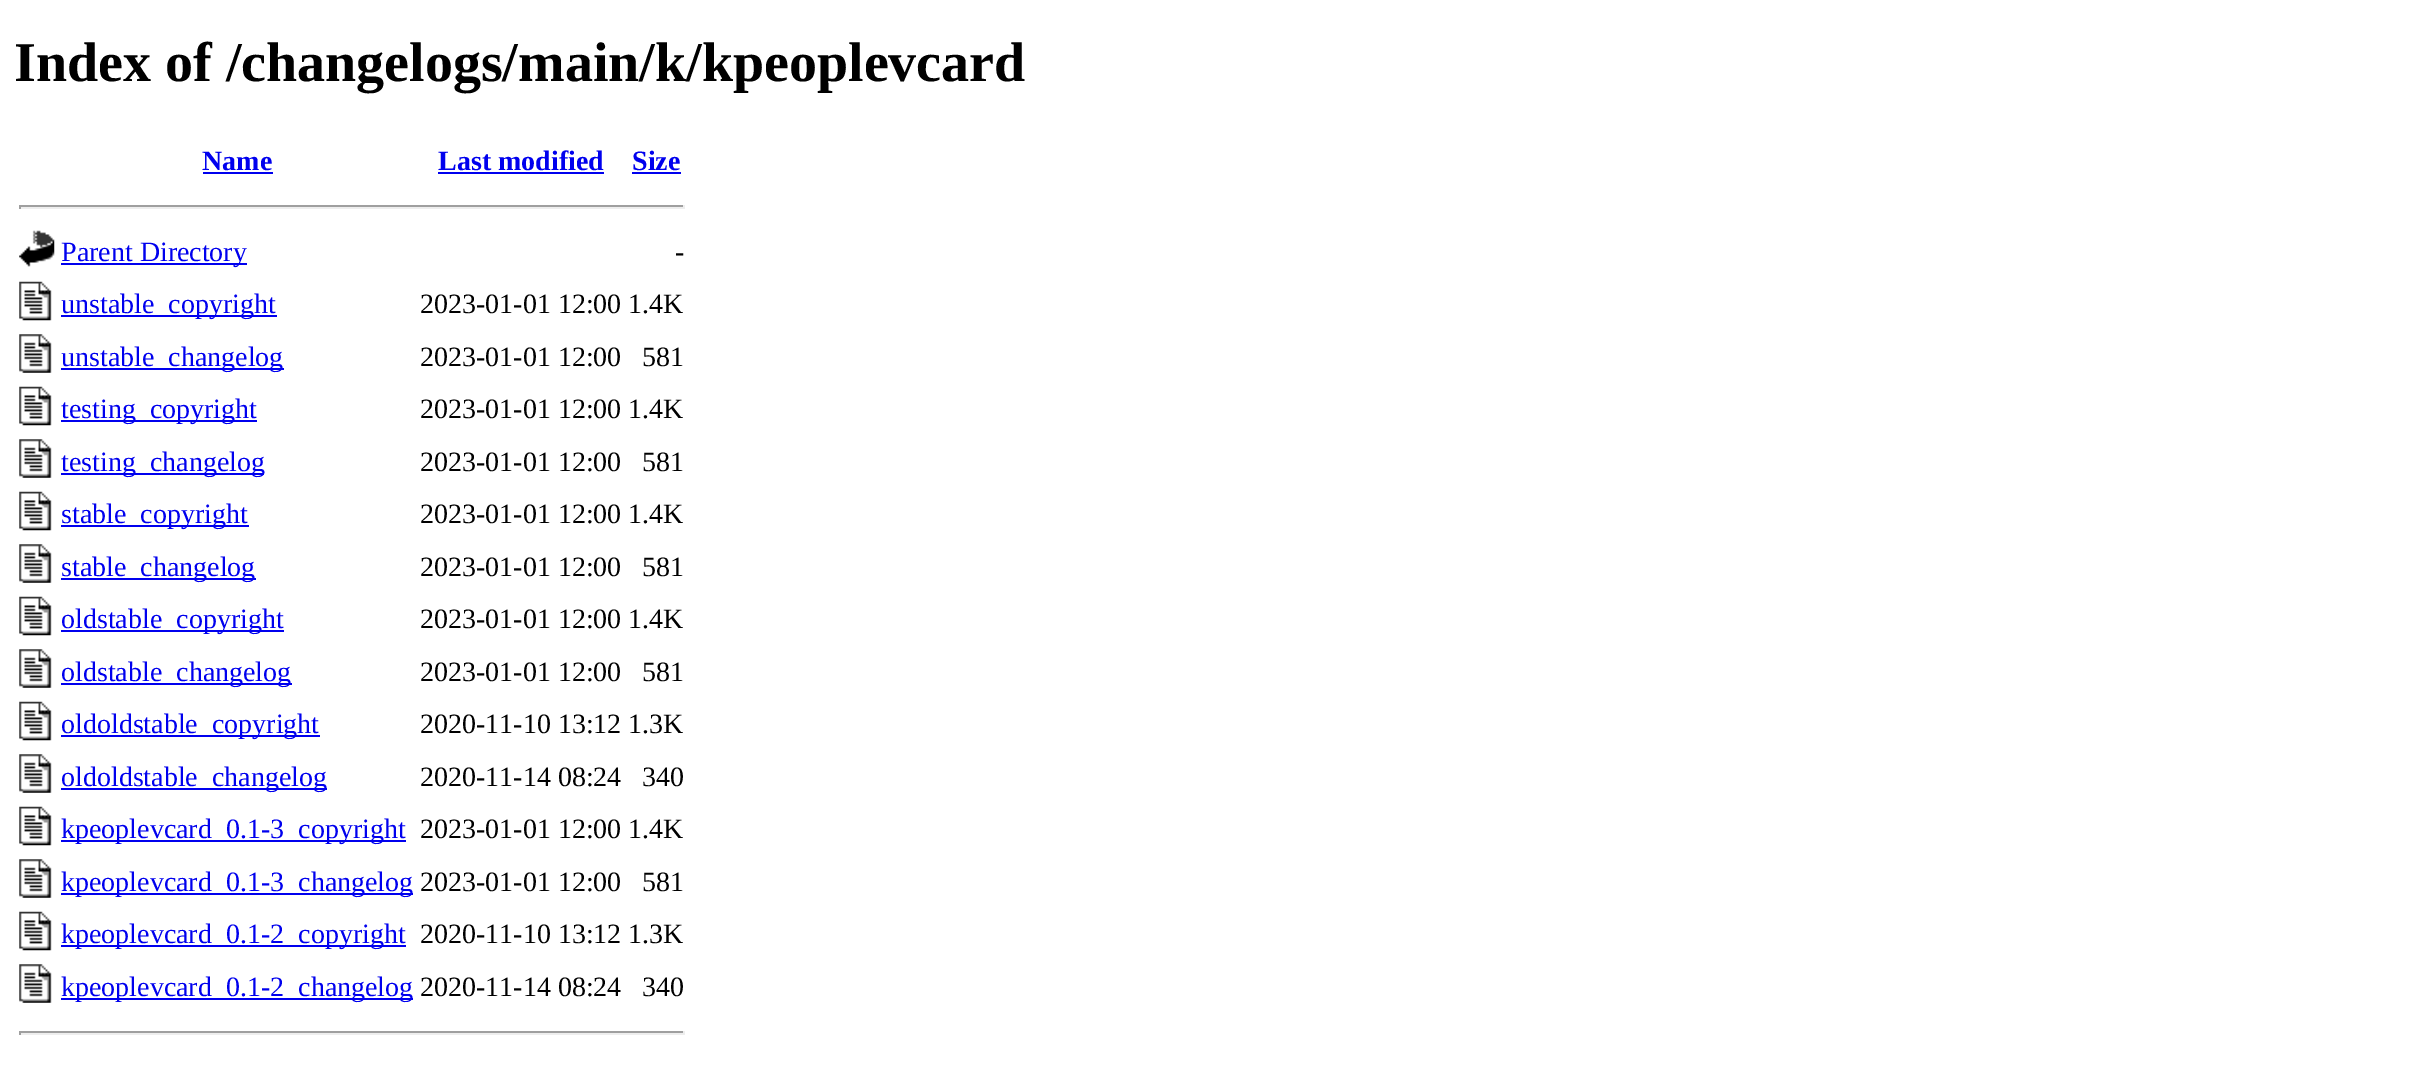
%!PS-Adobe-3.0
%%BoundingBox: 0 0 2424 1068
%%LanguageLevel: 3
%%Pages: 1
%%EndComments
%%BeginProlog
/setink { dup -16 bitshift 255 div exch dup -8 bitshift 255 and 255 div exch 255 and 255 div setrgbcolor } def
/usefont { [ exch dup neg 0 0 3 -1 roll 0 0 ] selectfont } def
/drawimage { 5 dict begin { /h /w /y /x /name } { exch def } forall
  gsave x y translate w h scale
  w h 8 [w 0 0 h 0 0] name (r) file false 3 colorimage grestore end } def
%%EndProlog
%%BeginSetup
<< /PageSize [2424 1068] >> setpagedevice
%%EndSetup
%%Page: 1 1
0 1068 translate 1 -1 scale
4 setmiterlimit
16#FFFFFF setink
0 0 2424 1068 rectfill
/LiberationSerif-Bold 56 usefont
16#000000 setink
14 81 moveto (Index of /changelogs/main/k/kpeoplevcard) show
/LiberationSerif-Bold 28 usefont
16#0000EE setink
202 170 moveto (Name) show
203 172 70 2 rectfill
438 170 moveto (Last modified) show
438 172 166 2 rectfill
632 170 moveto (Size) show
[
    [632 172 49 2 16#0000EE]
    [19 205 665 2 16#9F9F9F]
    [683 205 2 4 16#EEEEEE]
    [19 207 665 2 16#EEEEEE]
    [19 205 2 4 16#9F9F9F]
] { aload pop setink rectfill } forall
(img1.raw) 19 230 36 37 drawimage
16#0000EE setink
61 263 186 2 rectfill
/LiberationSerif-Regular 28 usefont
61 261 moveto (Parent Directory) show
16#000000 setink
675 261 moveto (-) show
(img2.raw) 19 281 33 40 drawimage
16#0000EE setink
61 315 216 2 rectfill
61 313 moveto (unstable_copyright) show
16#000000 setink
420 313 moveto (2023-01-01 12:00 1.4K) show
(img3.raw) 19 334 33 39 drawimage
16#0000EE setink
61 368 223 2 rectfill
61 366 moveto (unstable_changelog) show
16#000000 setink
420 366 moveto (2023-01-01 12:00) show
642 366 moveto (581) show
(img2.raw) 19 386 33 40 drawimage
16#0000EE setink
61 420 196 2 rectfill
61 418 moveto (testing_copyright) show
16#000000 setink
420 418 moveto (2023-01-01 12:00 1.4K) show
(img3.raw) 19 439 33 39 drawimage
16#0000EE setink
61 473 203 2 rectfill
61 471 moveto (testing_changelog) show
16#000000 setink
420 471 moveto (2023-01-01 12:00) show
642 471 moveto (581) show
(img2.raw) 19 491 33 40 drawimage
16#0000EE setink
61 525 188 2 rectfill
61 523 moveto (stable_copyright) show
16#000000 setink
420 523 moveto (2023-01-01 12:00 1.4K) show
(img3.raw) 19 544 33 39 drawimage
16#0000EE setink
61 578 195 2 rectfill
61 576 moveto (stable_changelog) show
16#000000 setink
420 576 moveto (2023-01-01 12:00) show
642 576 moveto (581) show
(img2.raw) 19 596 33 40 drawimage
16#0000EE setink
61 630 223 2 rectfill
61 628 moveto (oldstable_copyright) show
16#000000 setink
420 628 moveto (2023-01-01 12:00 1.4K) show
(img3.raw) 19 649 33 39 drawimage
16#0000EE setink
61 683 231 2 rectfill
61 681 moveto (oldstable_changelog) show
16#000000 setink
420 681 moveto (2023-01-01 12:00) show
642 681 moveto (581) show
(img2.raw) 19 701 33 40 drawimage
16#0000EE setink
61 735 259 2 rectfill
61 733 moveto (oldoldstable_copyright) show
16#000000 setink
420 733 moveto (2020-11-10 13:12 1.3K) show
(img3.raw) 19 754 33 39 drawimage
16#0000EE setink
61 788 266 2 rectfill
61 786 moveto (oldoldstable_changelog) show
16#000000 setink
420 786 moveto (2020-11-14 08:24) show
642 786 moveto (340) show
(img2.raw) 19 806 33 40 drawimage
16#0000EE setink
61 840 345 2 rectfill
61 838 moveto (kpeoplevcard_0.1-3_copyright) show
16#000000 setink
420 838 moveto (2023-01-01 12:00 1.4K) show
(img3.raw) 19 859 33 39 drawimage
16#0000EE setink
61 893 352 2 rectfill
61 891 moveto (kpeoplevcard_0.1-3_changelog) show
16#000000 setink
420 891 moveto (2023-01-01 12:00) show
642 891 moveto (581) show
(img2.raw) 19 911 33 40 drawimage
16#0000EE setink
61 945 345 2 rectfill
61 943 moveto (kpeoplevcard_0.1-2_copyright) show
16#000000 setink
420 943 moveto (2020-11-10 13:12 1.3K) show
(img3.raw) 19 964 33 39 drawimage
16#0000EE setink
61 998 352 2 rectfill
61 996 moveto (kpeoplevcard_0.1-2_changelog) show
16#000000 setink
420 996 moveto (2020-11-14 08:24) show
642 996 moveto (340) show
[
    [19 1031 665 2 16#9F9F9F]
    [683 1031 2 4 16#EEEEEE]
    [19 1033 665 2 16#EEEEEE]
    [19 1031 2 4 16#9F9F9F]
] { aload pop setink rectfill } forall
showpage
%%EOF
